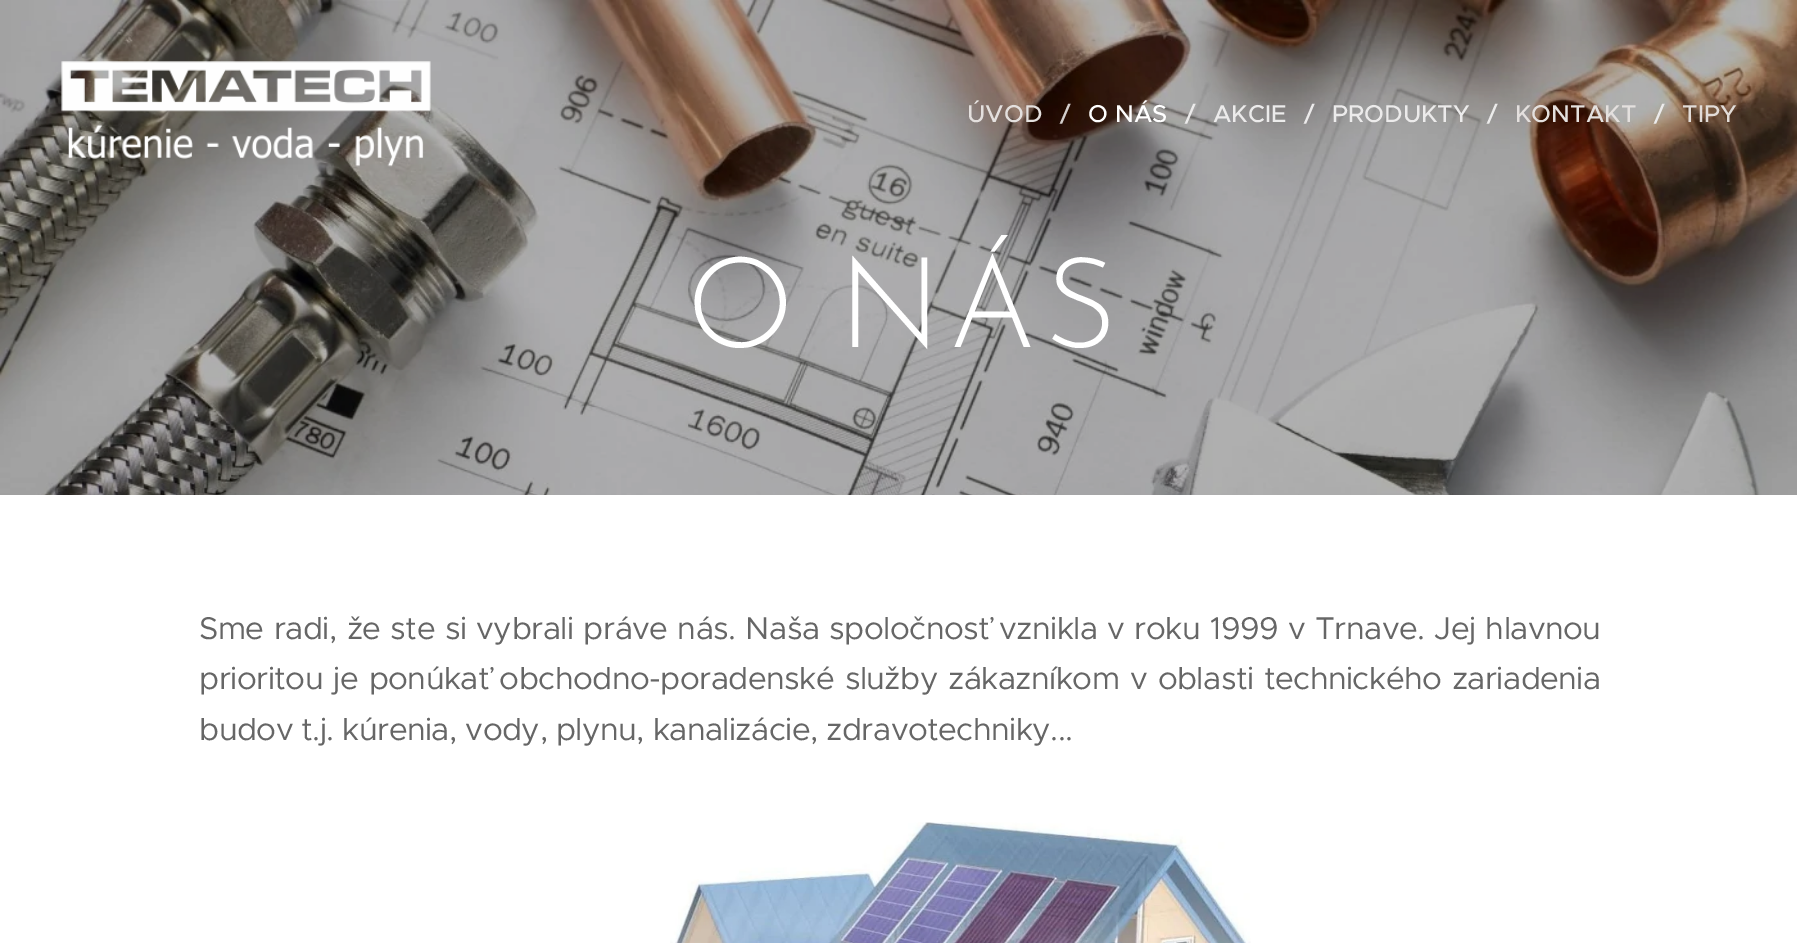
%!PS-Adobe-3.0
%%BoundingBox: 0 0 1797 943
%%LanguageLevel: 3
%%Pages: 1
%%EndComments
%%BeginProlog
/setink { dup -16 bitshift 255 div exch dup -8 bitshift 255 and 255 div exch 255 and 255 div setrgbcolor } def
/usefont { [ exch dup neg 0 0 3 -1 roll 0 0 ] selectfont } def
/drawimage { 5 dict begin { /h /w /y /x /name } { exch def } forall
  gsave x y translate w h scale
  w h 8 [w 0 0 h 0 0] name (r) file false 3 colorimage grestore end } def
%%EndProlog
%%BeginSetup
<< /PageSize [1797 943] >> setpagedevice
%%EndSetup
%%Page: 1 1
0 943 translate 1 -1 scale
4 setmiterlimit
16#FFFFFF setink
0 0 1797 943 rectfill
(img2.raw) 0 0 1797 495 drawimage
(img1.raw) 61 61 370 106 drawimage
/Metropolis-Medium 24.5 usefont
16#E4E0DE setink
967 122 moveto (ÚVOD) show
16#D3CECC setink
1060 122 moveto (/) show
16#FFFFFF setink
1088 122 moveto (O NÁS) show
16#ECEBEB setink
[
    [(/) 1185 122]
    [(AKCIE) 1213 122]
    [(/) 1304 122]
    [(PRODUKTY) 1332 122]
    [(/) 1487 122]
] { aload pop moveto show } forall
16#E4E0DE setink
1515 122 moveto (KONTAKT) show
16#ECEBEB setink
1654 122 moveto (/) show
16#E2DCD8 setink
1682 122 moveto (TIPY) show
/JosefinSans-Light 126 usefont
16#FFFFFF setink
686 347 moveto -8 0 32 6.5 0 (O NÁS) awidthshow
/Metropolis-Regular 31.5 usefont
16#666666 setink
199 639 moveto 1.4 0 32 -0.55 0 (Sme radi, že ste si vybrali práve nás. Naša spoločnosť vznikla v roku 1999 v Trnave. Jej hlavnou) awidthshow
199 689 moveto 2 0 32 -0.55 0 (prioritou je ponúkať obchodno-poradenské služby zákazníkom v oblasti technického zariadenia) awidthshow
199 740 moveto -0.55 0 (budov t.j. kúrenia, vody, plynu, kanalizácie, zdravotechniky...) ashow
(img3.raw) 670 822 581 121 drawimage
showpage
%%EOF
